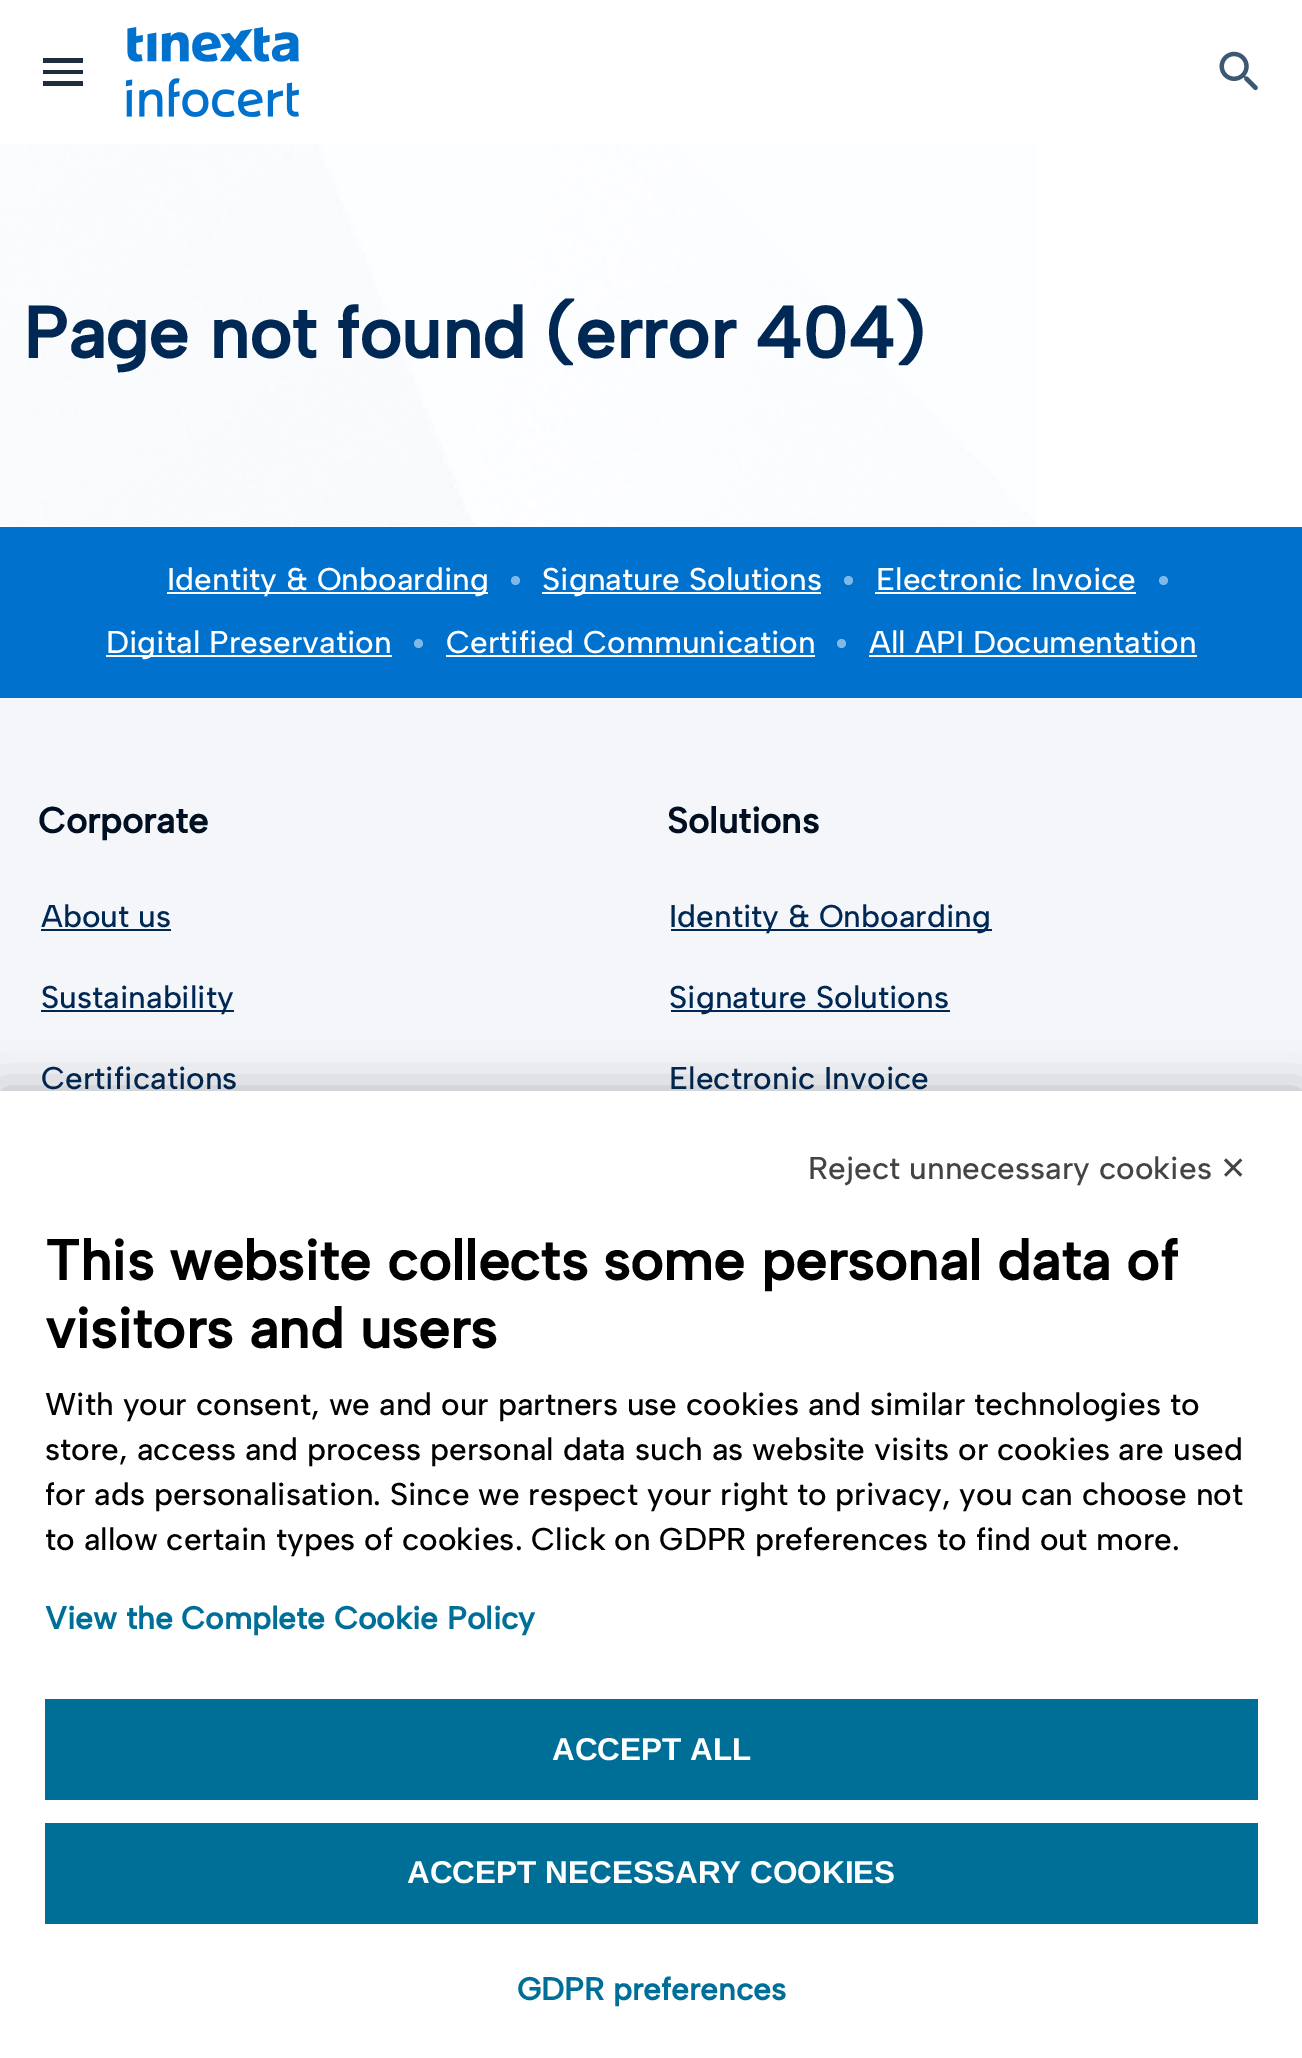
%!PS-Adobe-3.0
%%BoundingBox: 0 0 1302 2058
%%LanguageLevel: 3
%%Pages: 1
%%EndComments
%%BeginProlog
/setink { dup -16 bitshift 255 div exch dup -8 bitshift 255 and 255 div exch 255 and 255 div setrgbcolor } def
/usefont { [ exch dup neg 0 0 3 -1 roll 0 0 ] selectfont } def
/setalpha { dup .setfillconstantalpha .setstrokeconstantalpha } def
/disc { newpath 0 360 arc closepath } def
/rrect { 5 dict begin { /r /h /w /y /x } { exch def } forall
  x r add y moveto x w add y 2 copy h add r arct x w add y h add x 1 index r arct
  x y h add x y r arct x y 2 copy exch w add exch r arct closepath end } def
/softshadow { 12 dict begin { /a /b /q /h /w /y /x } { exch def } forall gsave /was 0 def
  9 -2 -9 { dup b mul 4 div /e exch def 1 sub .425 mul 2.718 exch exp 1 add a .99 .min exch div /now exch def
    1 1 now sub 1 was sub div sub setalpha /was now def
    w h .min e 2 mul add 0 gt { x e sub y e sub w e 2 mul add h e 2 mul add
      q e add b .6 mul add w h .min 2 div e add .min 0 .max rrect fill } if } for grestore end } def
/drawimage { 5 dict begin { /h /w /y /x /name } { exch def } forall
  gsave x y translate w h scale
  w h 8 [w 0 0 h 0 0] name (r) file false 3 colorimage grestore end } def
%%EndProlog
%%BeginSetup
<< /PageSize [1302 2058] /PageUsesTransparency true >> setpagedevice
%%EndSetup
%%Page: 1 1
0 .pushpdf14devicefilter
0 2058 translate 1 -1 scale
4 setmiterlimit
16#FFFFFF setink
0 0 1302 2058 rectfill
16#1D2D3D setink
43 58 moveto 83 58 lineto 83 63 lineto 43 63 lineto closepath 43 70 moveto 83 70 lineto 83 74 lineto 43 74 lineto closepath 43 86 moveto 43 81 lineto 83 81 lineto 83 86 lineto closepath fill
(img1.raw) 126 27 173 90 drawimage
(img2.raw) 1219 51 39 40 drawimage
(img3.raw) 0 144 1037 382 drawimage
/AlbertSans-Bold 72 usefont
16#002855 setink
23 358 moveto -0.25 0 (Page not found \(error 404\)) ashow
16#0072CE setink
0 527 1302 171 rectfill
16#FFFFFF setink
167 592 321 2 rectfill
/AlbertSans-Medium 31.5 usefont
167 590 moveto (Identity & Onboarding) show
16#80B9E7 setink
515.5 580.5 4.5 disc fill
16#FFFFFF setink
542 592 279 2 rectfill
542 590 moveto (Signature Solutions) show
16#80B9E7 setink
848.5 580.5 4.5 disc fill
16#FFFFFF setink
876 590 moveto (Electronic Invoice) show
875 592 261 2 rectfill
16#80B9E7 setink
1163.5 580.5 4.5 disc fill
16#FFFFFF setink
106 655 286 2 rectfill
106 653 moveto (Digital Preservation) show
16#80B9E7 setink
418.5 643.5 4.5 disc fill
16#FFFFFF setink
446 653 moveto (Certified Communication) show
446 655 369 2 rectfill
16#80B9E7 setink
841.5 643.5 4.5 disc fill
16#FFFFFF setink
869 653 moveto (All API Documentation) show
869 655 328 2 rectfill
16#F4F6F9 setink
0 698 1302 393 rectfill
/AlbertSans-Bold 36 usefont
16#001022 setink
38 833 moveto (Corporate) show
/AlbertSans-Medium 31.5 usefont
16#002855 setink
41 927 moveto (About us) show
41 929 130 2 rectfill
41 1010 193 2 rectfill
41 1008 moveto (Sustainability) show
41 1089 moveto (Certifications) show
/AlbertSans-Bold 36 usefont
16#001022 setink
667 833 moveto (Solutions) show
16#002855 setink
671 929 321 2 rectfill
/AlbertSans-Medium 31.5 usefont
669 927 moveto (Identity & Onboarding) show
671 1010 279 2 rectfill
669 1008 moveto (Signature Solutions) show
669 1089 moveto (Electronic Invoice) show
16#000000 setink
0 1091 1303 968 0 22.5 0.27 softshadow
16#FFFFFF setink
0 1091 1302 967 rectfill
16#444444 setink
808 1179 moveto (Reject unnecessary cookies) show
/DejaVuSans-Regular 31.5 usefont
1220 1179 moveto (✕) show
/AlbertSans-Bold 56.25 usefont
16#000000 setink
45 1280 moveto (This website collects some personal data of) show
45 1348 moveto (visitors and users) show
/AlbertSans-Medium 31.5 usefont
[
    [(With your consent, we and our partners use cookies and similar technologies to) 45 1415]
    [(store, access and process personal data such as website visits or cookies are used) 45 1460]
    [(for ads personalisation. Since we respect your right to privacy, you can choose not) 45 1505]
    [(to allow certain types of cookies. Click on GDPR preferences to find out more.) 45 1550]
] { aload pop moveto show } forall
/AlbertSans-Bold 31.5 usefont
16#006F98 setink
45 1629 moveto (View the Complete Cookie Policy) show
45 1699 1213 101 rectfill
/LiberationSans-Bold 31.5 usefont
16#FFFFFF setink
552 1760 moveto (ACCEPT ALL) show
16#006F98 setink
45 1823 1213 101 rectfill
16#FFFFFF setink
407 1883 moveto (ACCEPT NECESSARY COOKIES) show
/AlbertSans-Bold 31.5 usefont
16#006F98 setink
517 2000 moveto (GDPR preferences) show
.poppdf14devicefilter showpage
%%EOF
